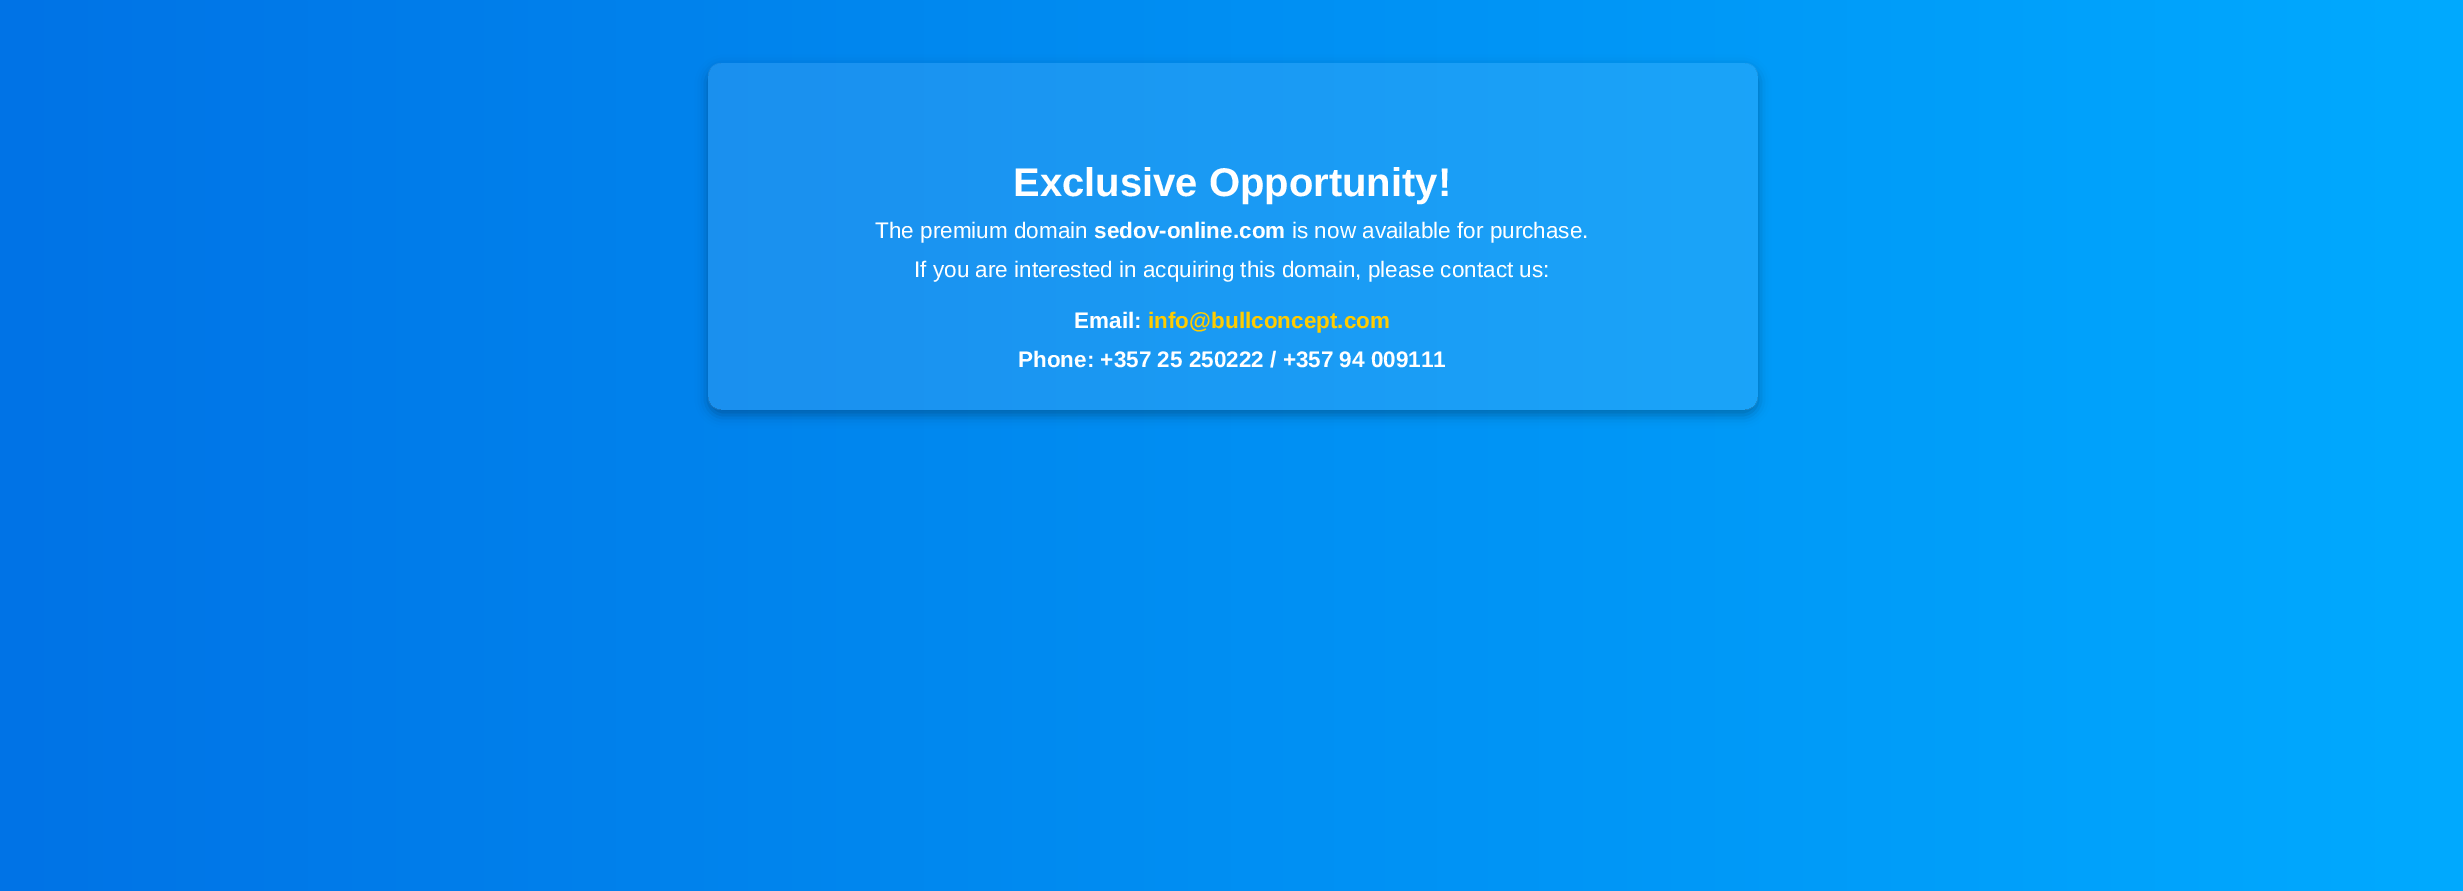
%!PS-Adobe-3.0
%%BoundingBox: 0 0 2463 891
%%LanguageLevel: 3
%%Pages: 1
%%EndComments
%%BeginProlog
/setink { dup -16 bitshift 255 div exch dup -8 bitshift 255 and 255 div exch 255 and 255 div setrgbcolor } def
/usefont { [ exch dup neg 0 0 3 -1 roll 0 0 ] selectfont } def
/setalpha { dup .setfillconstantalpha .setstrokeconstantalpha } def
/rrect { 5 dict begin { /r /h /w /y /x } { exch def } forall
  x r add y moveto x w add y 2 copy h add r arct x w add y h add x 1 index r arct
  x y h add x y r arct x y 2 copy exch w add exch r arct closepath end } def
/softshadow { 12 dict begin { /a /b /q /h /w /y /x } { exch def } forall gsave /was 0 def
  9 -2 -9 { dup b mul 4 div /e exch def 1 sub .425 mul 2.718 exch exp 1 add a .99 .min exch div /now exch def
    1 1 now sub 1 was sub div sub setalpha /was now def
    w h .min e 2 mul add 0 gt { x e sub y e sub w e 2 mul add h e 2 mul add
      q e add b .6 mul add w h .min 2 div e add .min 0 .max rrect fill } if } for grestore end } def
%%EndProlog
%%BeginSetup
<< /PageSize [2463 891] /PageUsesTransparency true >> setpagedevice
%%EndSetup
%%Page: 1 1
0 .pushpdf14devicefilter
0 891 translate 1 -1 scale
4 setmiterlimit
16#FFFFFF setink
0 0 2463 891 rectfill
gsave 0 0 moveto 2463 0 lineto 2463 891 lineto 0 891 lineto closepath clip newpath
<< /ShadingType 2 /ColorSpace /DeviceRGB /Coords [0 236 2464 236] /Extend [true true] /Function << /FunctionType 2 /Domain [0 1] /C0 [0 0.451 0.902] /C1 [0 0.667 1] /N 1 >> >> shfill grestore
gsave
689 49 moveto 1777 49 lineto 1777 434 lineto 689 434 lineto closepath 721 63 moveto 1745 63 lineto 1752 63 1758 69 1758 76 curveto 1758 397 lineto 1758 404 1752 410 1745 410 curveto 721 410 lineto 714 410 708 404 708 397 curveto 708 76 lineto 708 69 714 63 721 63 curveto closepath eoclip newpath
16#000000 setink
708 68 1050 347 13 6 0.3 softshadow
grestore
0.1 setalpha
708 63 1050 347 13 rrect fill
/LiberationSans-Bold 40 usefont
1 setalpha
1013 196 moveto (Exclusive Opportunity!) show
/LiberationSans-Regular 22.5 usefont
875 238 moveto (The premium domain) show
/LiberationSans-Bold 22.5 usefont
1094 238 moveto (sedov-online.com) show
/LiberationSans-Regular 22.5 usefont
1292 238 moveto (is now available for purchase.) show
914 277 moveto (If you are interested in acquiring this domain, please contact us:) show
/LiberationSans-Bold 22.5 usefont
1074 328 moveto (Email:) show
16#FFCC00 setink
1148 328 moveto (info@bullconcept.com) show
16#FFFFFF setink
1018 367 moveto (Phone: +357 25 250222 / +357 94 009111) show
.poppdf14devicefilter showpage
%%EOF
